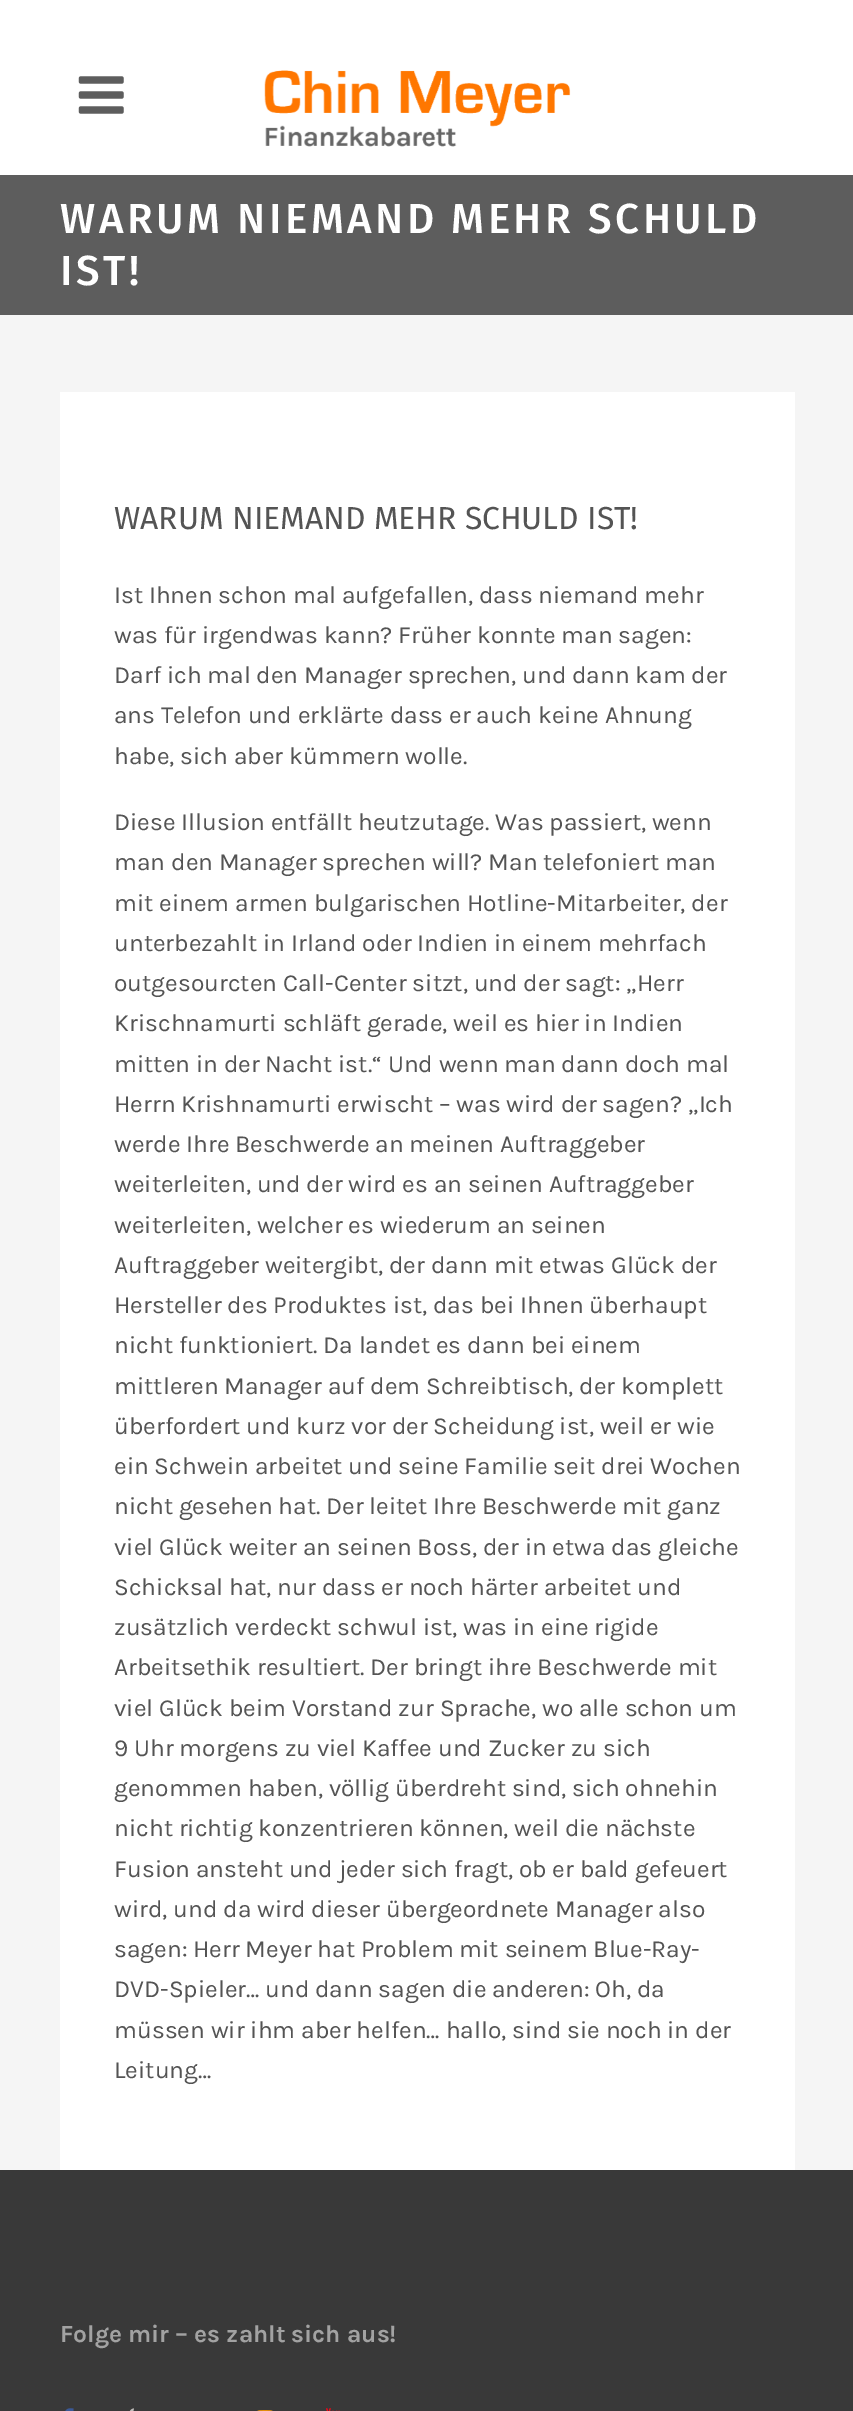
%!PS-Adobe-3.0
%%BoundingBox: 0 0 853 2411
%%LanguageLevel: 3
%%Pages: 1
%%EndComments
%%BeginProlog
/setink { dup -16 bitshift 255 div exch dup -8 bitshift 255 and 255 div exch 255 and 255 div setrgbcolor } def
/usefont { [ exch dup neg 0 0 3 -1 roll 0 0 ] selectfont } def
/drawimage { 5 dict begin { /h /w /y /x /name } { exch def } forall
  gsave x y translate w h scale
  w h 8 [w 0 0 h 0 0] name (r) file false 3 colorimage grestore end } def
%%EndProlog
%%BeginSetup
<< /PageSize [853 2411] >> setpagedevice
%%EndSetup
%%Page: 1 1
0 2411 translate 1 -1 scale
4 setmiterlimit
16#F5F5F5 setink
0 0 853 2411 rectfill
16#FFFFFF setink
0 0 853 175 rectfill
(img1.raw) 78 76 46 38 drawimage
(img2.raw) 264 70 307 77 drawimage
16#5D5D5D setink
0 175 853 140 rectfill
/FiraSans-Medium 42 usefont
16#FFFFFF setink
60 233 moveto 3.5 0 (WARUM NIEMAND MEHR SCHULD) ashow
60 285 moveto 3.5 0 (IST!) ashow
60 392 735 1778 rectfill
/FiraSans-Regular 31.8 usefont
16#545454 setink
114 529 moveto (WARUM NIEMAND MEHR SCHULD IST!) show
/Karla-Regular 24.5 usefont
[
    [(Ist Ihnen schon mal aufgefallen, dass niemand mehr) 114 603]
    [(was für irgendwas kann? Früher konnte man sagen:) 114 643]
    [(Darf ich mal den Manager sprechen, und dann kam der) 114 683]
    [(ans Telefon und erklärte dass er auch keine Ahnung) 114 723]
    [(habe, sich aber kümmern wolle.) 114 764]
    [(Diese Illusion entfällt heutzutage. Was passiert, wenn) 114 830]
    [(man den Manager sprechen will? Man telefoniert man) 114 870]
    [(mit einem armen bulgarischen Hotline-Mitarbeiter, der) 114 911]
    [(unterbezahlt in Irland oder Indien in einem mehrfach) 114 951]
    [(outgesourcten Call-Center sitzt, und der sagt: „Herr) 114 991]
    [(Krischnamurti schläft gerade, weil es hier in Indien) 114 1031]
    [(mitten in der Nacht ist.“ Und wenn man dann doch mal) 114 1072]
    [(Herrn Krishnamurti erwischt – was wird der sagen? „Ich) 114 1112]
    [(werde Ihre Beschwerde an meinen Auftraggeber) 114 1152]
    [(weiterleiten, und der wird es an seinen Auftraggeber) 114 1192]
    [(weiterleiten, welcher es wiederum an seinen) 114 1233]
    [(Auftraggeber weitergibt, der dann mit etwas Glück der) 114 1273]
    [(Hersteller des Produktes ist, das bei Ihnen überhaupt) 114 1313]
    [(nicht funktioniert. Da landet es dann bei einem) 114 1353]
    [(mittleren Manager auf dem Schreibtisch, der komplett) 114 1394]
    [(überfordert und kurz vor der Scheidung ist, weil er wie) 114 1434]
    [(ein Schwein arbeitet und seine Familie seit drei Wochen) 114 1474]
    [(nicht gesehen hat. Der leitet Ihre Beschwerde mit ganz) 114 1514]
    [(viel Glück weiter an seinen Boss, der in etwa das gleiche) 114 1555]
    [(Schicksal hat, nur dass er noch härter arbeitet und) 114 1595]
    [(zusätzlich verdeckt schwul ist, was in eine rigide) 114 1635]
    [(Arbeitsethik resultiert. Der bringt ihre Beschwerde mit) 114 1675]
    [(viel Glück beim Vorstand zur Sprache, wo alle schon um) 114 1716]
    [(9 Uhr morgens zu viel Kaffee und Zucker zu sich) 114 1756]
    [(genommen haben, völlig überdreht sind, sich ohnehin) 114 1796]
    [(nicht richtig konzentrieren können, weil die nächste) 114 1836]
    [(Fusion ansteht und jeder sich fragt, ob er bald gefeuert) 114 1877]
    [(wird, und da wird dieser übergeordnete Manager also) 114 1917]
    [(sagen: Herr Meyer hat Problem mit seinem Blue-Ray-) 114 1957]
    [(DVD-Spieler… und dann sagen die anderen: Oh, da) 114 1997]
    [(müssen wir ihm aber helfen… hallo, sind sie noch in der) 114 2038]
    [(Leitung…) 114 2078]
] { aload pop moveto show } forall
16#393939 setink
0 2170 853 241 rectfill
/Karla-Bold 24.5 usefont
16#A2A2A2 setink
60 2342 moveto (Folge mir – es zahlt sich aus!) show
(img3.raw) 65 2408 9 3 drawimage
(img4.raw) 129 2408 5 3 drawimage
(img5.raw) 257 2410 16 1 drawimage
(img6.raw) 326 2408 14 3 drawimage
showpage
%%EOF
